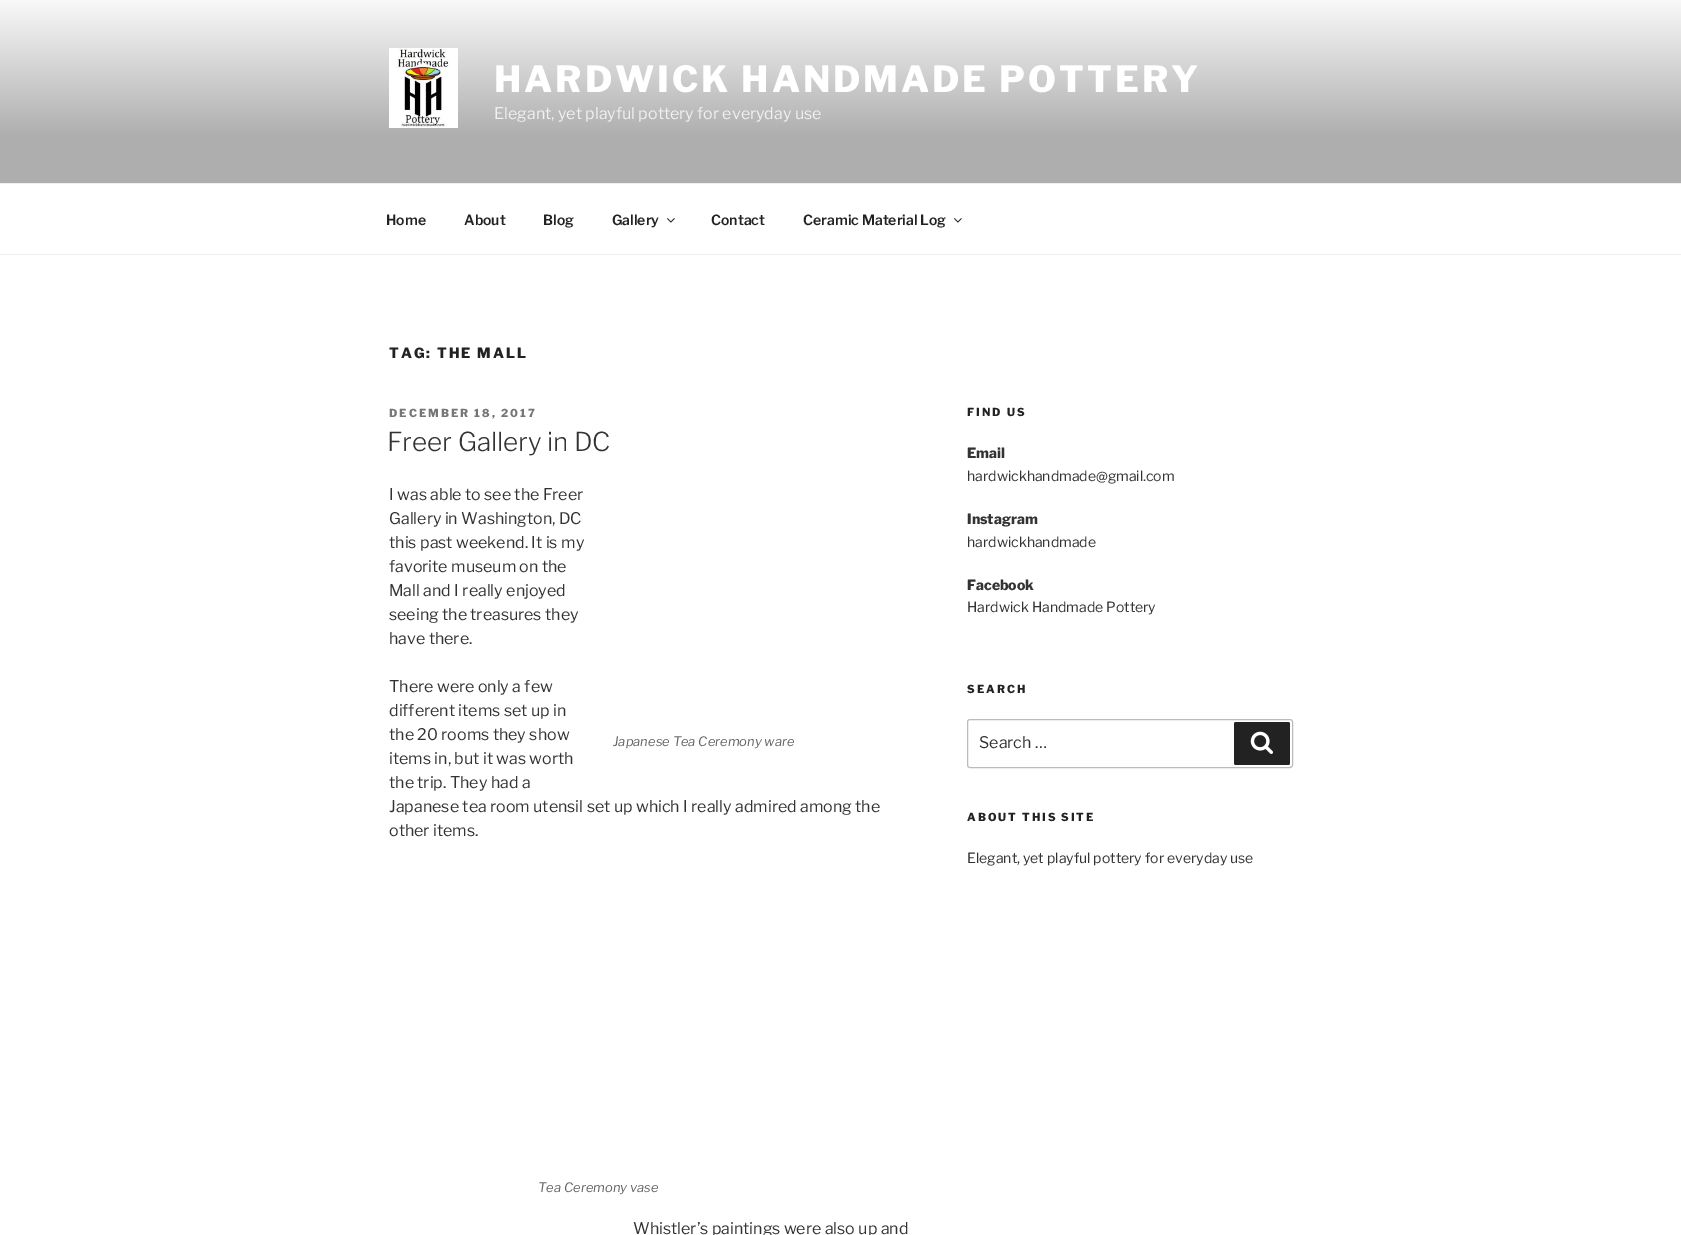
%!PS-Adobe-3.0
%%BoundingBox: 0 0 1681 1235
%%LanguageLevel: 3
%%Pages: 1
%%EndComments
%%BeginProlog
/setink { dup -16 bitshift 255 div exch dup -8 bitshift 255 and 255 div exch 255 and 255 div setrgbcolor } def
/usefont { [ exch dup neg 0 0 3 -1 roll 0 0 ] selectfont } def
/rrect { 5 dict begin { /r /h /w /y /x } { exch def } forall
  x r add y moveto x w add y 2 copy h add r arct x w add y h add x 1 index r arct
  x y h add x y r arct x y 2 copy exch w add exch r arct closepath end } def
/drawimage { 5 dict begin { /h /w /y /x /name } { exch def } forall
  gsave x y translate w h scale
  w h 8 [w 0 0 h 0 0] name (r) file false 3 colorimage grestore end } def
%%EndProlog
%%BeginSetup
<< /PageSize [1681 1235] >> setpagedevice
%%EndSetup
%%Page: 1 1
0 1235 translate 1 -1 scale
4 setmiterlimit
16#FFFFFF setink
0 0 1681 1235 rectfill
gsave 0 0 moveto 1681 0 lineto 1681 183 lineto 0 183 lineto closepath clip newpath
<< /ShadingType 2 /ColorSpace /DeviceRGB /Coords [841 0 841 183] /Extend [true true] /Function << /FunctionType 3 /Domain [0 1] /Functions [<< /FunctionType 2 /Domain [0 1] /C0 [0.976 0.976 0.976] /C1 [0.682 0.682 0.682] /N 1 >> << /FunctionType 2 /Domain [0 1] /C0 [0.682 0.682 0.682] /C1 [0.682 0.682 0.682] /N 1 >>] /Bounds [0.75] /Encode [0 1 0 1] >> >> shfill grestore
(img1.raw) 389 48 69 80 drawimage
/LibreFranklin-Thin 36 usefont
494 92 moveto 2.9 0 (HARDWICK HANDMADE POTTERY) ashow
/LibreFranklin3-Thin 16 usefont
16#F1F1F1 setink
494 119 moveto (Elegant, yet playful pottery for everyday use) show
16#EEEEEE setink
0 183 1681 1 rectfill
0 254 1681 1 rectfill
/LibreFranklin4-Thin 14 usefont
16#222222 setink
[
    [(Home) 386 225]
    [(About) 464 225]
    [(Blog) 543 225]
    [(Gallery) 612 225]
] { aload pop moveto show } forall
(img2.raw) 667 218 8 5 drawimage
711 225 moveto (Contact) show
803 225 moveto (Ceramic Material Log) show
(img2.raw) 954 218 8 5 drawimage
/LibreFranklin-Thin 14 usefont
389 358 moveto 2 0 (TAG: THE MALL) ashow
/LibreFranklin-Thin 11 usefont
16#767676 setink
389 417 moveto 2 0 (DECEMBER 18, 2017) ashow
/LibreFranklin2-Thin 26 usefont
16#333333 setink
387 451 moveto (Freer Gallery in DC) show
/LibreFranklin3-Thin 16 usefont
[
    [(I was able to see the Freer) 389 500]
    [(Gallery in Washington, DC) 389 524]
    [(this past weekend. It is my) 389 548]
    [(favorite museum on the) 389 572]
    [(Mall and I really enjoyed) 389 596]
    [(seeing the treasures they) 389 620]
    [(have there.) 389 644]
    [(There were only a few) 389 692]
    [(different items set up in) 389 716]
    [(the 20 rooms they show) 389 740]
    [(items in, but it was worth) 389 764]
    [(the trip. They had a) 389 788]
    [(Japanese tea room utensil set up which I really admired among the) 389 812]
    [(other items.) 389 836]
] { aload pop moveto show } forall
/LibreFranklin-ThinItalic 13 usefont
16#666666 setink
613 746 moveto (Japanese Tea Ceremony ware) show
538 1192 moveto (Tea Ceremony vase) show
/LibreFranklin3-Thin 16 usefont
16#333333 setink
633 1234 moveto (Whistler’s paintings were also up and) show
/LibreFranklin-Thin 11 usefont
16#222222 setink
967 416 moveto 2 0 (FIND US) ashow
/LibreFranklin-Thin 14 usefont
16#333333 setink
967 458 moveto (Email) show
/LibreFranklin3-Thin 14 usefont
967 481 moveto (hardwickhandmade@gmail.com) show
/LibreFranklin-Thin 14 usefont
967 524 moveto (Instagram) show
/LibreFranklin3-Thin 14 usefont
967 547 moveto (hardwickhandmade) show
/LibreFranklin-Thin 14 usefont
967 590 moveto (Facebook) show
/LibreFranklin3-Thin 14 usefont
967 612 moveto (Hardwick Handmade Pottery) show
/LibreFranklin-Thin 11 usefont
16#222222 setink
967 693 moveto 2 0 (SEARCH) ashow
16#BBBBBB setink
967.5 719.5 325 48 2.5 rrect stroke
/LibreFranklin3-Thin 16 usefont
16#333333 setink
979 748 moveto (Search …) show
16#222222 setink
1234 722 56 43 2 rrect fill
(img3.raw) 1250 731 23 23 drawimage
/LibreFranklin-Thin 11 usefont
967 821 moveto 2 0 (ABOUT THIS SITE) ashow
/LibreFranklin3-Thin 14 usefont
16#333333 setink
967 863 moveto (Elegant, yet playful pottery for everyday use) show
showpage
%%EOF
